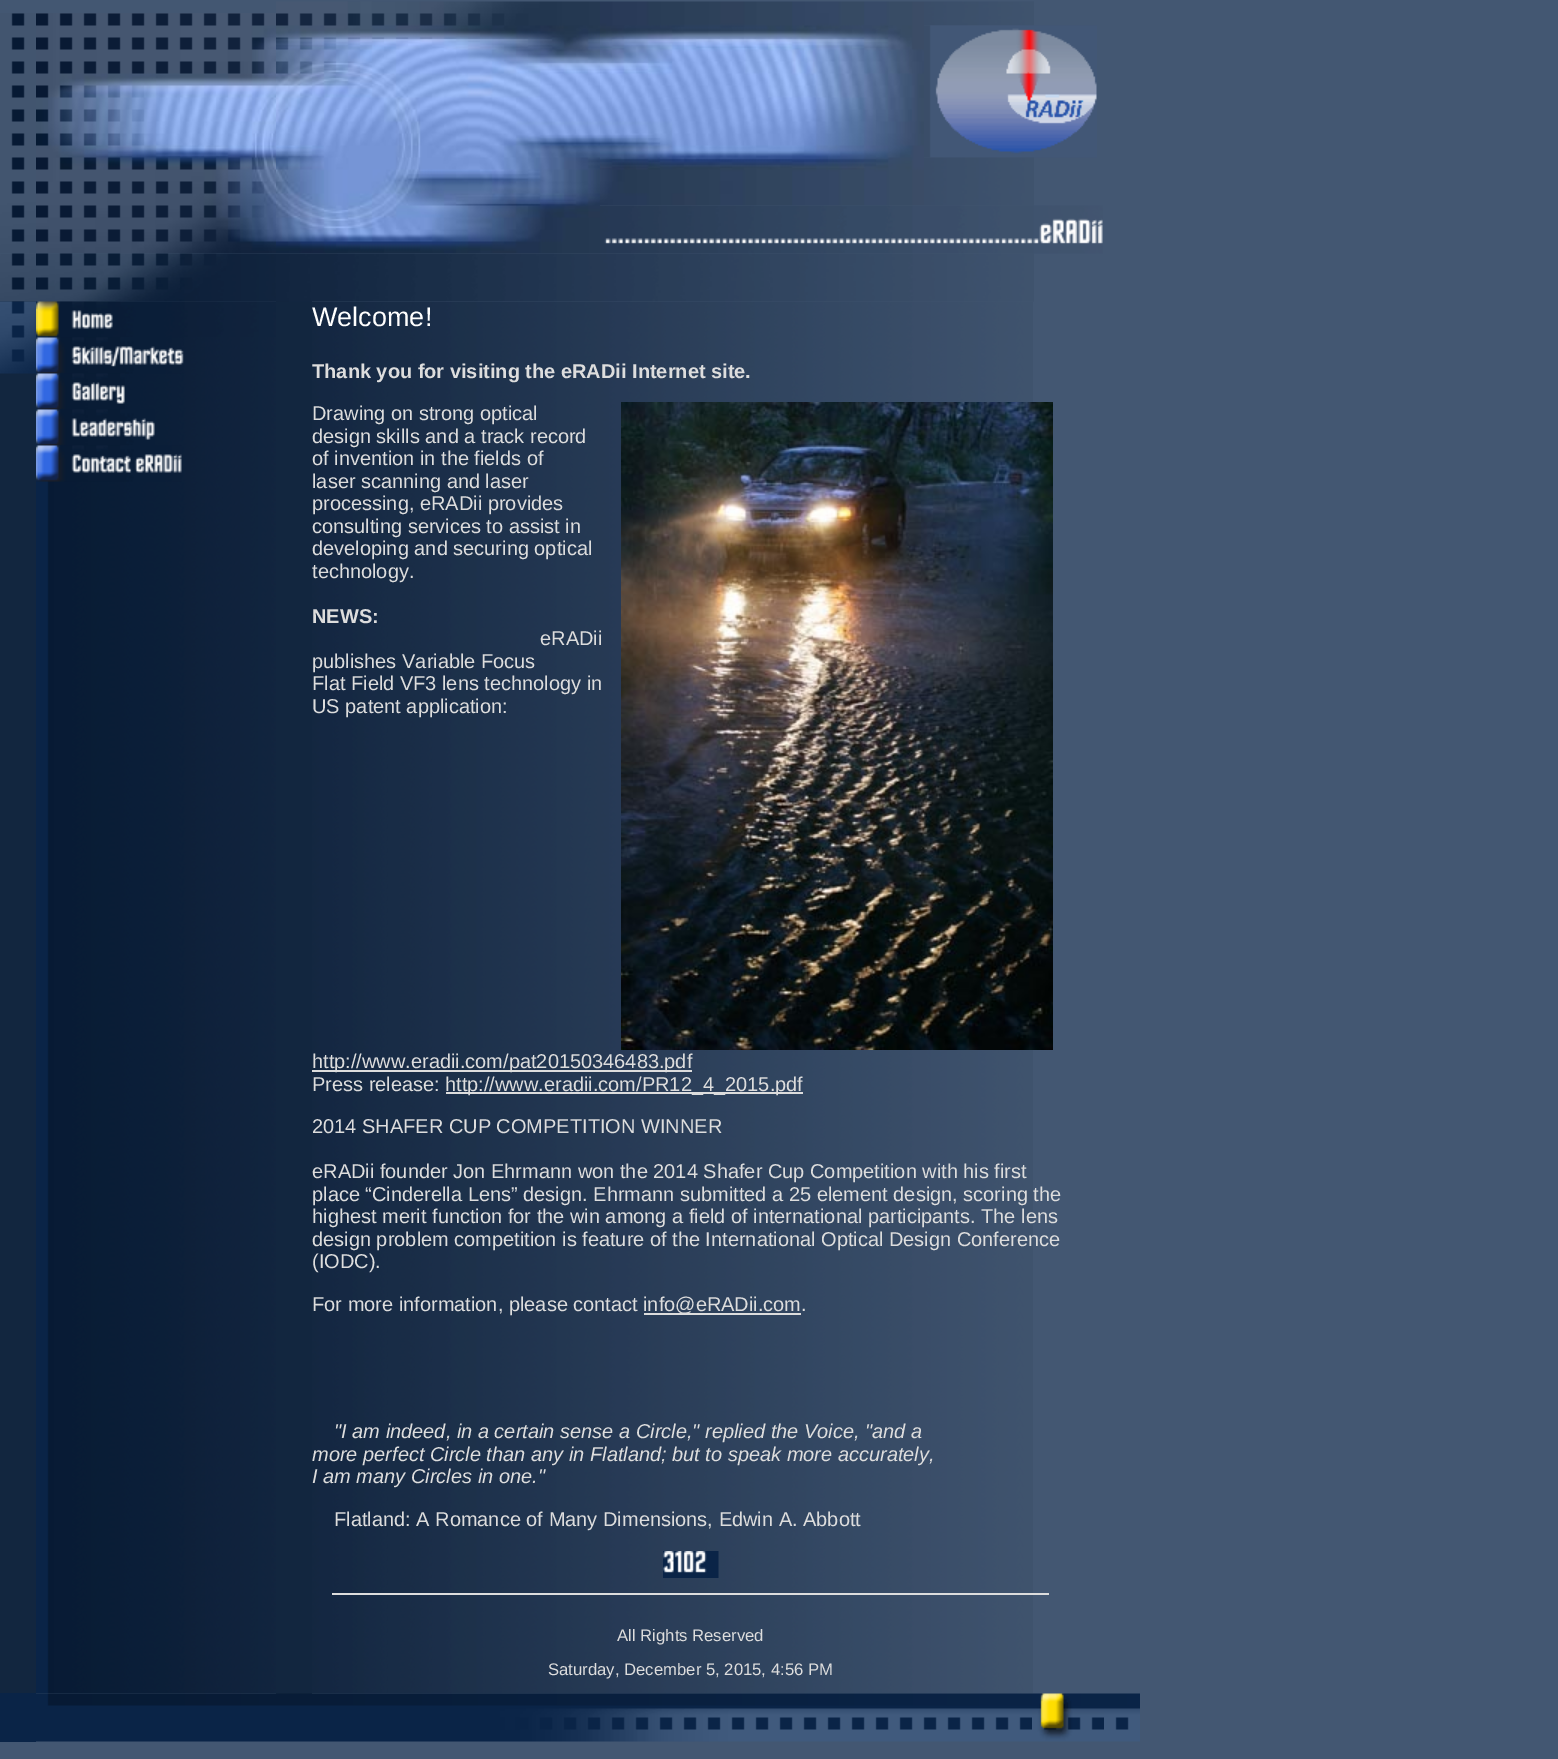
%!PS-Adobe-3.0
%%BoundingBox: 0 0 1558 1759
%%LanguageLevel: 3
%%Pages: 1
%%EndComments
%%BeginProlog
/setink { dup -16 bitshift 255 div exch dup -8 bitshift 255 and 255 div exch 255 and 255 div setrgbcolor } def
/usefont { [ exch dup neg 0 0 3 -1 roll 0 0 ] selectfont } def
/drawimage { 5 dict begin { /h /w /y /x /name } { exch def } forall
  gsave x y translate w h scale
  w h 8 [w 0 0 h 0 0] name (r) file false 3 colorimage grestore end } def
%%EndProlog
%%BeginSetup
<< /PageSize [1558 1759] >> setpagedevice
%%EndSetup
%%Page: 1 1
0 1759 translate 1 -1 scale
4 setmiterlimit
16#435772 setink
0 0 1558 1759 rectfill
(img1.raw) 0 13 36 241 drawimage
(img2.raw) 36 13 240 241 drawimage
(img3.raw) 276 1 324 253 drawimage
(img4.raw) 600 1 324 205 drawimage
(img5.raw) 924 1 110 25 drawimage
(img6.raw) 924 25 173 133 drawimage
(img7.raw) 924 157 110 49 drawimage
(img8.raw) 600 205 503 49 drawimage
16#12263F setink
0 301 36 1392 rectfill
(img9.raw) 0 253 36 49 drawimage
(img13.raw) 36 301 240 1393 drawimage
(img10.raw) 36 253 240 49 drawimage
276 301 36 1393 rectfill
(img19.raw) 312 301 721 1393 drawimage
(img11.raw) 276 253 758 49 drawimage
(img12.raw) 0 301 36 73 drawimage
(img14.raw) 36 301 240 36 drawimage
(img15.raw) 36 337 148 37 drawimage
(img16.raw) 36 373 89 37 drawimage
(img17.raw) 36 409 119 37 drawimage
(img18.raw) 36 445 146 37 drawimage
/LiberationSans-Regular 27 usefont
16#FFFFFF setink
312 326 moveto (Welcome!) show
/LiberationSans-Bold 20 usefont
16#DDDDDD setink
312 378 moveto (Thank you for visiting the eRADii Internet site.) show
/LiberationSans-Regular 20 usefont
312 420 moveto (Drawing on strong optical) show
(img20.raw) 621 402 432 648 drawimage
[
    [(design skills and a track record) 312 443]
    [(of invention in the fields of) 312 465]
    [(laser scanning and laser) 312 488]
    [(processing, eRADii provides) 312 510]
    [(consulting services to assist in) 312 533]
    [(developing and securing optical) 312 555]
    [(technology.) 312 578]
] { aload pop moveto show } forall
/LiberationSans-Bold 20 usefont
312 623 moveto (NEWS:) show
/LiberationSans-Regular 20 usefont
[
    [(eRADii) 540 645]
    [(publishes Variable Focus) 312 668]
    [(Flat Field VF3 lens technology in) 312 690]
    [(US patent application:) 312 713]
] { aload pop moveto show } forall
312 1070 380 2 rectfill
312 1068 moveto (http://www.eradii.com/pat20150346483.pdf) show
312 1091 moveto (Press release:) show
446 1092 357 2 rectfill
[
    [(http://www.eradii.com/PR12_4_2015.pdf) 445 1091]
    [(2014 SHAFER CUP COMPETITION WINNER) 312 1133]
    [(eRADii founder Jon Ehrmann won the 2014 Shafer Cup Competition with his first) 312 1178]
    [(place “Cinderella Lens” design. Ehrmann submitted a 25 element design, scoring the) 312 1201]
    [(highest merit function for the win among a field of international participants. The lens) 312 1223]
    [(design problem competition is feature of the International Optical Design Conference) 312 1246]
    [(\(IODC\).) 312 1268]
    [(For more information, please contact) 312 1311]
] { aload pop moveto show } forall
644 1313 157 2 rectfill
643 1311 moveto (info@eRADii.com.) show
/LiberationSans-Italic 20 usefont
[
    [("I am indeed, in a certain sense a Circle," replied the Voice, "and a) 334 1438]
    [(more perfect Circle than any in Flatland; but to speak more accurately,) 312 1461]
    [(I am many Circles in one.") 312 1483]
] { aload pop moveto show } forall
/LiberationSans-Regular 20 usefont
334 1526 moveto (Flatland: A Romance of Many Dimensions, Edwin A. Abbott) show
(img21.raw) 663 1551 56 27 drawimage
332 1593 717 2 rectfill
/LiberationSans-Regular 16.7 usefont
617 1641 moveto (All Rights Reserved) show
548 1675 moveto (Saturday, December 5, 2015, 4:56 PM) show
16#0A2447 setink
0 1693 36 49 rectfill
(img22.raw) 36 1693 240 49 drawimage
(img23.raw) 276 1693 36 49 drawimage
(img24.raw) 312 1693 720 49 drawimage
(img25.raw) 1032 1693 72 49 drawimage
(img26.raw) 1104 1693 36 49 drawimage
showpage
%%EOF
